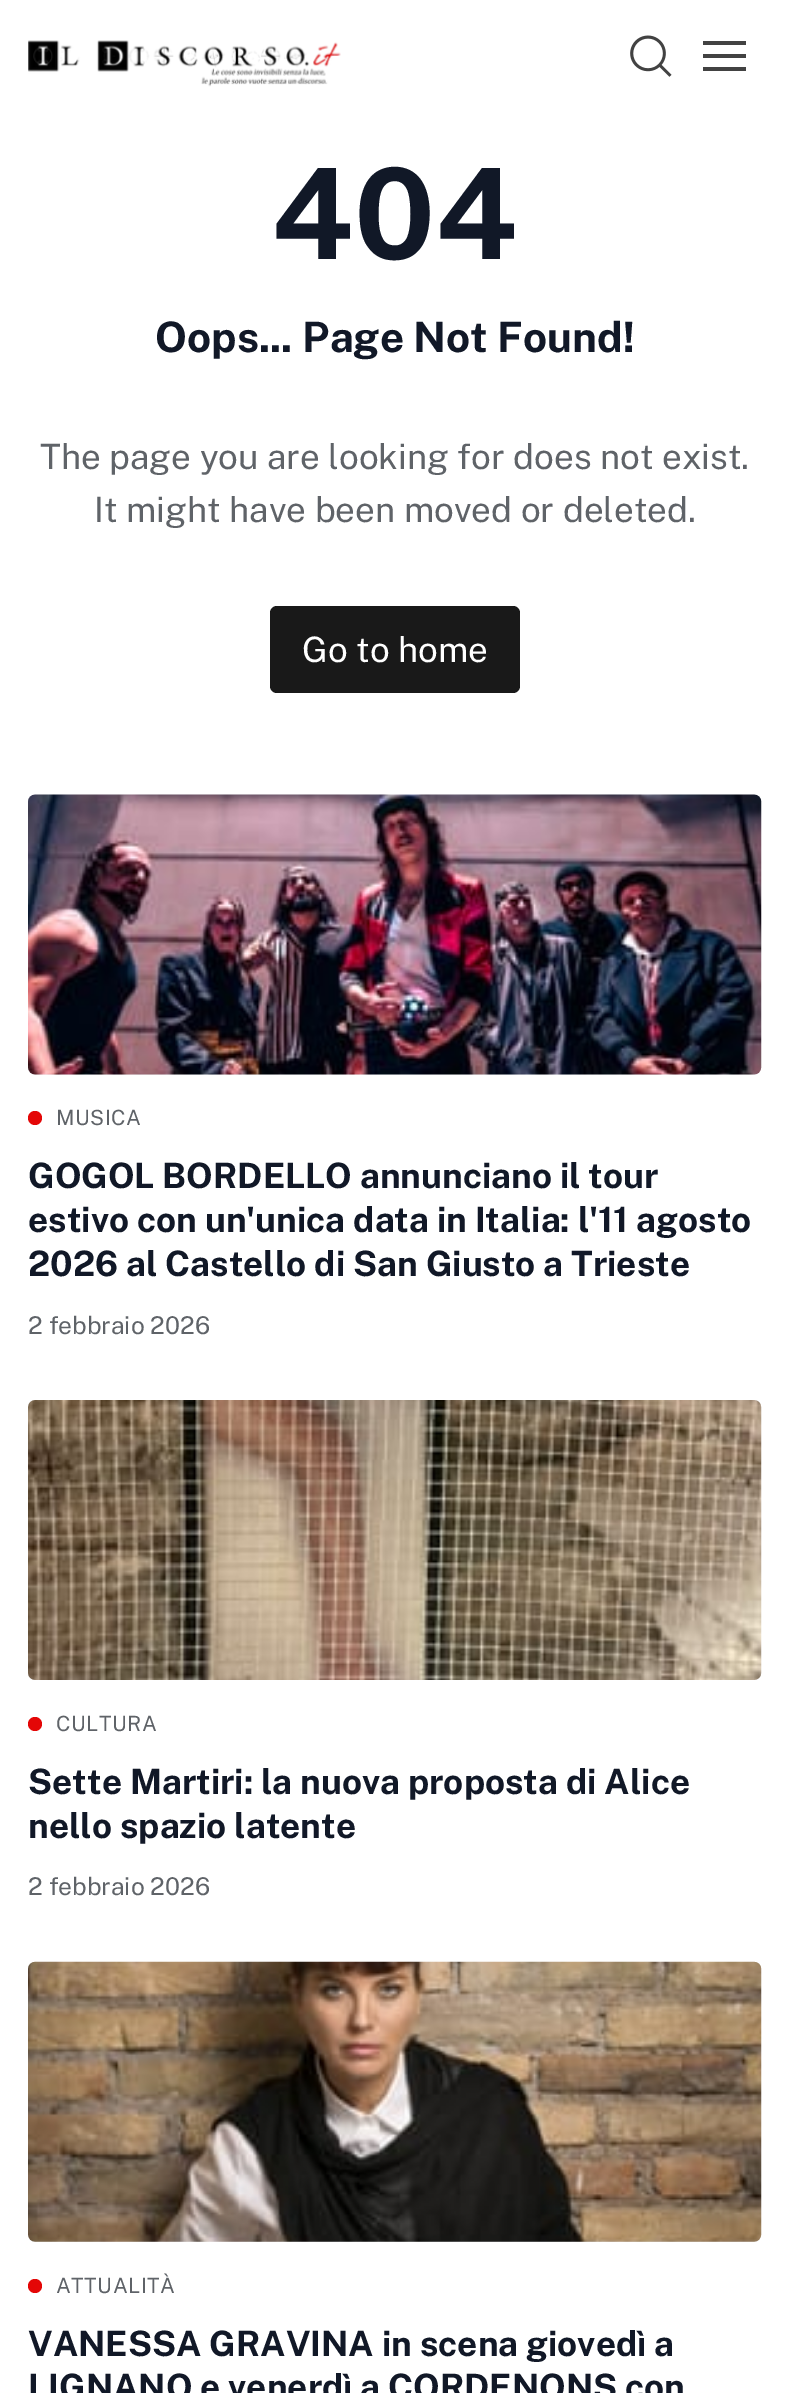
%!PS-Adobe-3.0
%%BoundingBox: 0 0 789 2393
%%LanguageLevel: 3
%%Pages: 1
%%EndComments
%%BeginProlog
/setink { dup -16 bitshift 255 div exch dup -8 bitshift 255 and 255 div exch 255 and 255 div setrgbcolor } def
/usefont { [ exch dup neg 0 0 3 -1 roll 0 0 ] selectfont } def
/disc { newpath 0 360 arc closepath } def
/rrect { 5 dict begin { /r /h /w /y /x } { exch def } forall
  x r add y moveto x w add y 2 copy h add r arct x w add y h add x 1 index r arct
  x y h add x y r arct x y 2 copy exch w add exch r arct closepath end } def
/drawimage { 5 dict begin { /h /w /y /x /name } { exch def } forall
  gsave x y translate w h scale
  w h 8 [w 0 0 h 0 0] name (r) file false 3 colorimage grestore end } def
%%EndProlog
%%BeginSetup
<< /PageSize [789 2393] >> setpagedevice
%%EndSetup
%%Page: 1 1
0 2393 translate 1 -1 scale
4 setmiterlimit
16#FFFFFF setink
0 0 789 2393 rectfill
(img1.raw) 28 40 313 47 drawimage
(img2.raw) 630 35 42 42 drawimage
16#424242 setink
703 41 moveto 746 41 lineto 746 45 lineto 703 45 lineto closepath 703 54 moveto 746 54 lineto 746 58 lineto 703 58 lineto closepath 703 67 moveto 746 67 lineto 746 71 lineto 703 71 lineto closepath fill
/PublicSans-Bold 126 usefont
16#111827 setink
271 259 moveto (404) show
/PublicSans-Bold 42 usefont
155 352 moveto (Oops... Page Not Found!) show
/PublicSans-Regular 35 usefont
16#5F6368 setink
40 469 moveto (The page you are looking for does not exist.) show
94 522 moveto (It might have been moved or deleted.) show
16#191919 setink
270 606 250 87 7 rrect fill
16#FFFFFF setink
302 662 moveto (Go to home) show
16#F0F2F5 setink
28 795 733 280 7 rrect fill
(img3.raw) 28 794 734 281 drawimage
16#E40707 setink
35 1118 7 disc fill
/PublicSans-Regular 21 usefont
16#5F6368 setink
56 1125 moveto 0.5 0 (MUSICA) ashow
/PublicSans-Bold 35 usefont
16#111827 setink
[
    [(GOGOL BORDELLO annunciano il tour) 28 1188]
    [(estivo con un'unica data in Italia: l'11 agosto) 28 1232]
    [(2026 al Castello di San Giusto a Trieste) 28 1276]
] { aload pop moveto show } forall
/PublicSans-Regular 24.5 usefont
16#5F6368 setink
28 1334 moveto (2 febbraio 2026) show
(img4.raw) 28 1400 734 280 drawimage
16#E40707 setink
35 1724 7 disc fill
/PublicSans-Regular 21 usefont
16#5F6368 setink
56 1731 moveto 0.5 0 (CULTURA) ashow
/PublicSans-Bold 35 usefont
16#111827 setink
28 1794 moveto (Sette Martiri: la nuova proposta di Alice) show
28 1838 moveto (nello spazio latente) show
/PublicSans-Regular 24.5 usefont
16#5F6368 setink
28 1895 moveto (2 febbraio 2026) show
16#F0F2F5 setink
28 1962 733 280 7 rrect fill
(img5.raw) 28 1961 734 281 drawimage
16#E40707 setink
35 2286 7 disc fill
/PublicSans-Regular 21 usefont
16#5F6368 setink
56 2293 moveto 0.5 0 (ATTUALITÀ) ashow
/PublicSans-Bold 35 usefont
16#111827 setink
28 2356 moveto (VANESSA GRAVINA in scena giovedì a) show
28 2399 moveto (LIGNANO e venerdì a CORDENONS con) show
showpage
%%EOF
